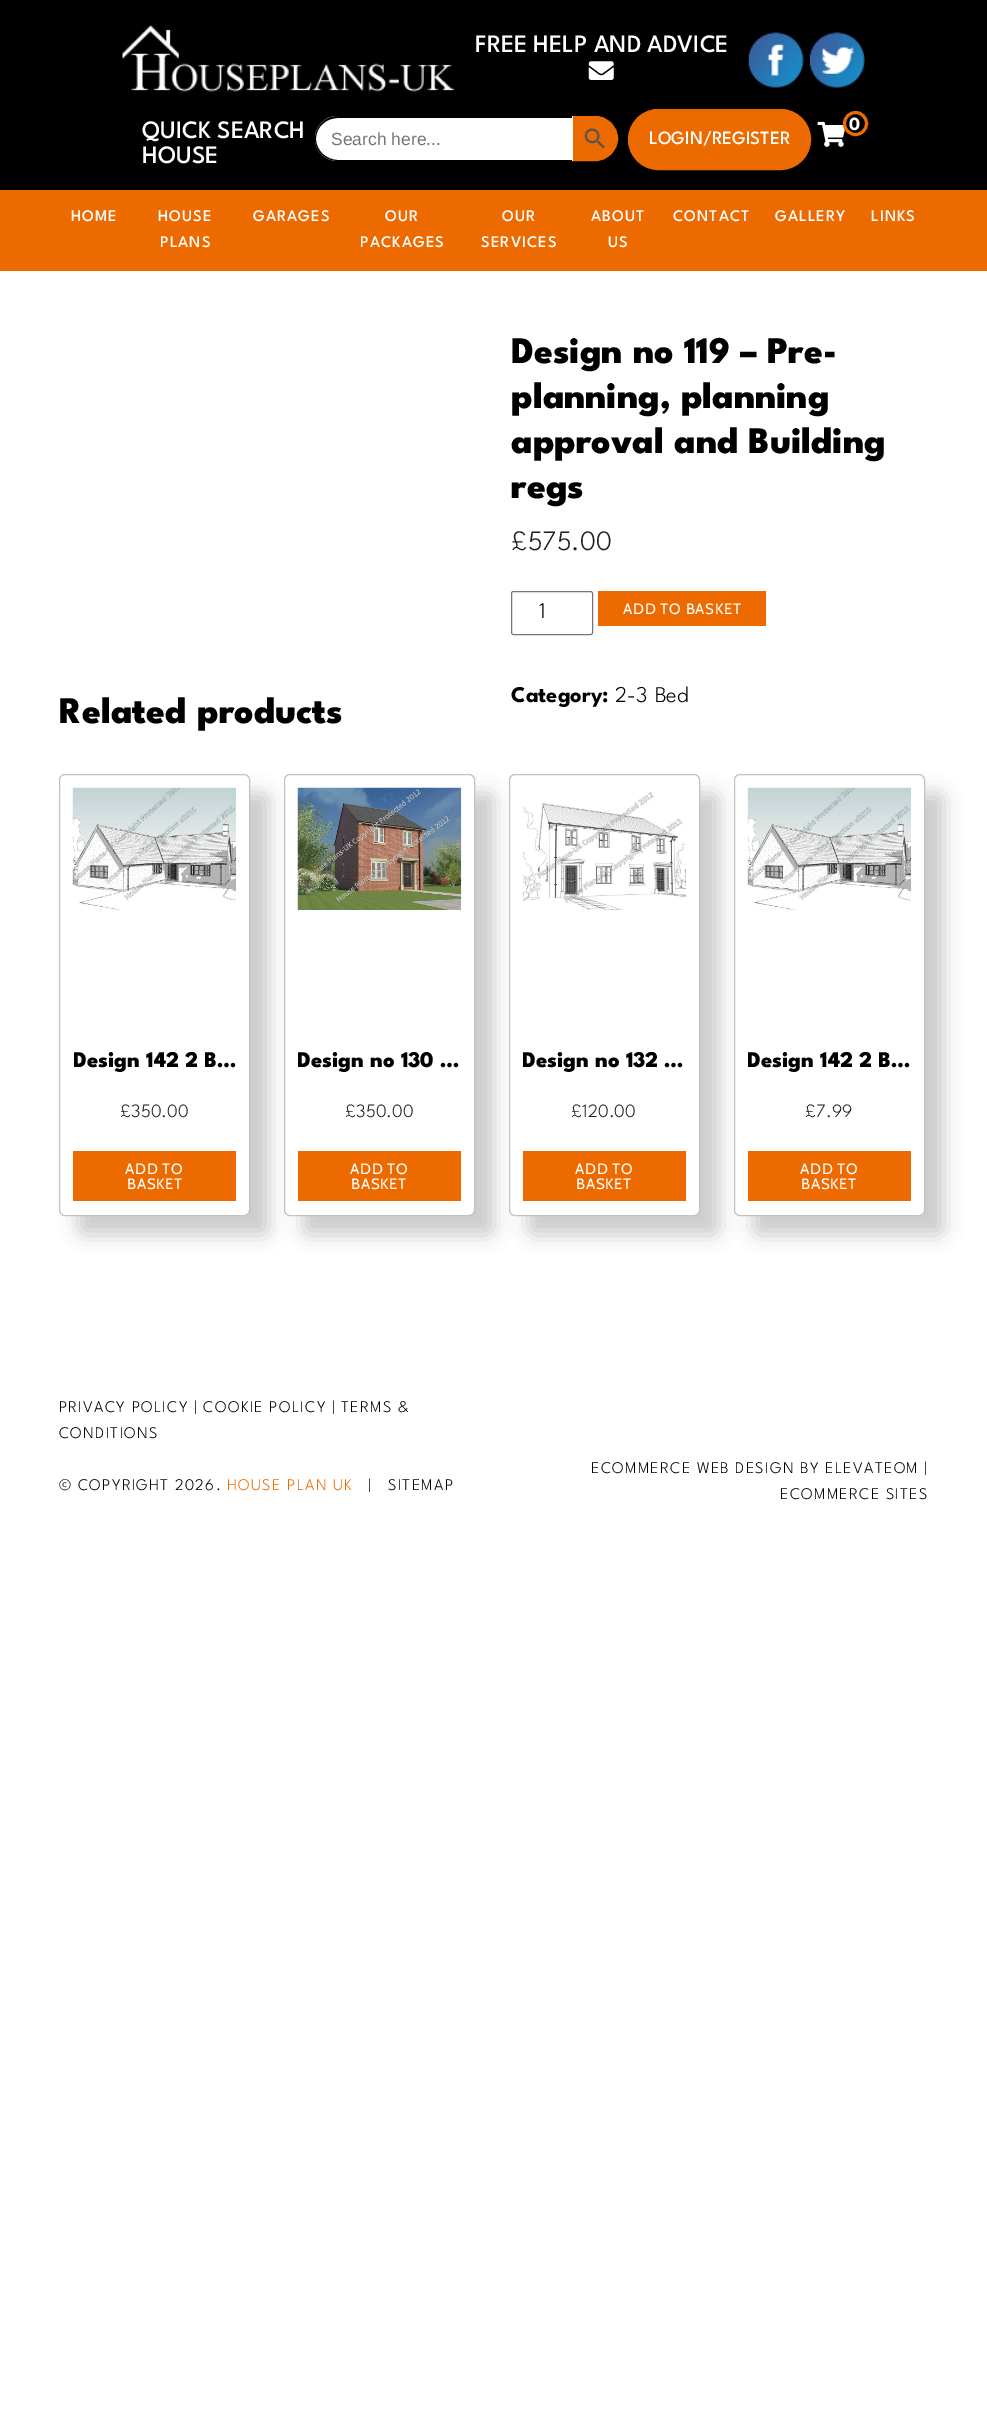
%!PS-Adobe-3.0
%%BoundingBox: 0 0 987 2409
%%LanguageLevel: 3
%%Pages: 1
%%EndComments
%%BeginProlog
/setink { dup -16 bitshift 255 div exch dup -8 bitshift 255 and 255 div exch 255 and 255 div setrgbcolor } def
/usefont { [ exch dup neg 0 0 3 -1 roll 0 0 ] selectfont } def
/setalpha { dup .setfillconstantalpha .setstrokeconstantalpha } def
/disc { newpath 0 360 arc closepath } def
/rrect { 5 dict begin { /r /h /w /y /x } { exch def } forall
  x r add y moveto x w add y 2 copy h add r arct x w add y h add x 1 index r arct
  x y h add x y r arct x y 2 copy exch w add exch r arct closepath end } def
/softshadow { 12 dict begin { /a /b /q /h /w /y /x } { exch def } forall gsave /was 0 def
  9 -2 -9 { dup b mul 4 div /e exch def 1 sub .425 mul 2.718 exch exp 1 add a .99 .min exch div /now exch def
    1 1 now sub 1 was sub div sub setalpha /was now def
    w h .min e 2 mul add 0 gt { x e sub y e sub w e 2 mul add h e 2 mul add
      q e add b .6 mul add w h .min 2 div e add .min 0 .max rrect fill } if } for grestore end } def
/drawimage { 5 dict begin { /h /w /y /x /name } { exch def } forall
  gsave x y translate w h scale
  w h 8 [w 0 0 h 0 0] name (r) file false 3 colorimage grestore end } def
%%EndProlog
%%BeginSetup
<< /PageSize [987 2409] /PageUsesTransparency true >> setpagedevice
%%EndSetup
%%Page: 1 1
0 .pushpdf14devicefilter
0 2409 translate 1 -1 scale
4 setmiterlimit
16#FFFFFF setink
0 0 987 2409 rectfill
16#000000 setink
0 0 987 190 rectfill
(img1.raw) 122 25 333 67 drawimage
/LeagueSpartan-Medium 25 usefont
16#FFFFFF setink
475 52 moveto (FREE HELP AND ADVICE) show
(img2.raw) 588 61 26 19 drawimage
(img3.raw) 748 32 56 56 drawimage
(img4.raw) 810 32 55 56 drawimage
142 138 moveto (QUICK SEARCH) show
142 163 moveto (HOUSE) show
337.5 116 moveto 573 116 lineto 573 161 lineto 337.5 161 lineto 325 161 315 151 315 138.5 curveto 315 126 325 116 337.5 116 curveto closepath fill
16#000000 setink
338 116 moveto 572 116 lineto 572 161 lineto 338 161 lineto 325 161 315 151 315 139 curveto 315 126 325 116 338 116 curveto closepath 338 118 moveto 572 118 lineto 572 160 lineto 338 160 lineto 326 160 316 150 316 139 curveto 316 127 326 118 338 118 curveto closepath eofill
/LiberationSans-Regular 17.5 usefont
16#757575 setink
331 145 moveto (Search here...) show
16#ED6A00 setink
573.5 116.5 moveto 595.5 116.5 lineto 607.5 116.5 617.5 126.5 617.5 138.5 curveto 617.5 150.5 607.5 160.5 595.5 160.5 curveto 573.5 160.5 lineto closepath gsave fill grestore
stroke
(img5.raw) 584 128 21 21 drawimage
(img6.raw) 817 121 28 26 drawimage
3 setlinewidth
855.5 123.5 11 disc stroke
/LeagueSpartan-Bold 18.75 usefont
16#FFFFFF setink
849 130 moveto (0) show
16#ED6A00 setink
628.5 109.5 182 60 30 rrect gsave fill grestore
1 setlinewidth
stroke
/LeagueSpartan-Medium 18.75 usefont
16#FFFFFF setink
649 144 moveto (LOGIN/REGISTER) show
16#ED6A00 setink
0 190 987 81 rectfill
/LeagueSpartan-Medium 16.25 usefont
16#FFFFFF setink
71 221 moveto 1 0 (HOME) ashow
158 221 moveto 1 0 (HOUSE) ashow
160 247 moveto 1 0 (PLANS) ashow
253 221 moveto 1 0 (GARAGES) ashow
385 221 moveto 1 0 (OUR) ashow
360 247 moveto 1 0 (PACKAGES) ashow
502 221 moveto 1 0 (OUR) ashow
481 247 moveto 1 0 (SERVICES) ashow
591 221 moveto 1 0 (ABOUT) ashow
608 247 moveto 1 0 (US) ashow
673 221 moveto 1 0 (CONTACT) ashow
775 221 moveto 1 0 (GALLERY) ashow
871 221 moveto 1 0 (LINKS) ashow
/LeagueSpartan-ExtraBold 37.5 usefont
16#000000 setink
[
    [(Design no 119 – Pre-) 511 363]
    [(planning, planning) 511 408]
    [(approval and Building) 511 453]
    [(regs) 511 498]
] { aload pop moveto show } forall
/LeagueSpartan-Light 28 usefont
16#1F1E1E setink
511 550 moveto (£575.00) show
16#767676 setink
511.5 591.5 81 43 2 rrect stroke
/LeagueSpartan-Light 22.5 usefont
16#000000 setink
539 618 moveto (1) show
16#ED6A00 setink
598 591 168 35 rectfill
/Cabin-Regular 15 usefont
16#FFFFFF setink
623 614 moveto 0.75 0 (ADD TO BASKET) ashow
/LeagueSpartan-Bold 22.5 usefont
16#000000 setink
511 702 moveto (Category:) show
/LeagueSpartan-Light 22.5 usefont
615 702 moveto 2 0 32 (2-3 Bed) widthshow
/LeagueSpartan-ExtraBold 37.5 usefont
59 723 moveto (Related products) show
78 793 191 442 6 9.5 0.2 softshadow
16#FFFFFF setink
59.5 774.5 190 441 5.5 rrect gsave fill grestore
16#C2C2C2 setink
stroke
(img7.raw) 72 787 165 123 drawimage
/LeagueSpartan-ExtraBold 22.5 usefont
16#000000 setink
73 1067 moveto (Design 142 2 B…) show
/LeagueSpartan-Light 18.75 usefont
16#1F1E1E setink
120 1117 moveto (£350.00) show
16#ED6A00 setink
73 1151 163 50 rectfill
/Cabin-Regular 15 usefont
16#FFFFFF setink
125 1174 moveto 0.75 0 (ADD TO) ashow
127 1189 moveto 0.75 0 (BASKET) ashow
16#000000 setink
303 793 191 442 6 9.5 0.2 softshadow
16#FFFFFF setink
284.5 774.5 190 441 5.5 rrect gsave fill grestore
16#C2C2C2 setink
stroke
(img8.raw) 297 787 165 123 drawimage
/LeagueSpartan-ExtraBold 22.5 usefont
16#000000 setink
297 1067 moveto (Design no 130 …) show
/LeagueSpartan-Light 18.75 usefont
16#1F1E1E setink
345 1117 moveto (£350.00) show
16#ED6A00 setink
298 1151 163 50 rectfill
/Cabin-Regular 15 usefont
16#FFFFFF setink
350 1174 moveto 0.75 0 (ADD TO) ashow
351 1189 moveto 0.75 0 (BASKET) ashow
16#000000 setink
528 793 191 442 6 9.5 0.2 softshadow
16#FFFFFF setink
509.5 774.5 190 441 5.5 rrect gsave fill grestore
16#C2C2C2 setink
stroke
(img9.raw) 522 792 165 118 drawimage
/LeagueSpartan-ExtraBold 22.5 usefont
16#000000 setink
522 1067 moveto (Design no 132 …) show
/LeagueSpartan-Light 18.75 usefont
16#1F1E1E setink
571 1117 moveto (£120.00) show
16#ED6A00 setink
523 1151 163 50 rectfill
/Cabin-Regular 15 usefont
16#FFFFFF setink
575 1174 moveto 0.75 0 (ADD TO) ashow
576 1189 moveto 0.75 0 (BASKET) ashow
16#000000 setink
753 793 191 442 6 9.5 0.2 softshadow
16#FFFFFF setink
734.5 774.5 190 441 5.5 rrect gsave fill grestore
16#C2C2C2 setink
stroke
(img7.raw) 747 787 165 123 drawimage
/LeagueSpartan-ExtraBold 22.5 usefont
16#000000 setink
747 1067 moveto (Design 142 2 B…) show
/LeagueSpartan-Light 18.75 usefont
16#1F1E1E setink
805 1117 moveto (£7.99) show
16#ED6A00 setink
748 1151 163 50 rectfill
/Cabin-Regular 15 usefont
16#FFFFFF setink
800 1174 moveto 0.75 0 (ADD TO) ashow
801 1189 moveto 0.75 0 (BASKET) ashow
/LeagueSpartan-Light 16.25 usefont
16#000000 setink
59 1412 moveto 1.3 0 (PRIVACY POLICY | COOKIE POLICY | TERMS &) ashow
59 1438 moveto 1.3 0 (CONDITIONS) ashow
59 1490 moveto 1.3 0 (© COPYRIGHT 2026.) ashow
16#ED6A00 setink
227 1490 moveto 1.3 0 (HOUSE PLAN UK) ashow
16#000000 setink
368 1490 moveto 1.3 0 (|) ashow
388 1490 moveto 1.3 0 (SITEMAP) ashow
591 1473 moveto 1.3 0 (ECOMMERCE WEB DESIGN BY ELEVATEOM |) ashow
780 1499 moveto 1.3 0 (ECOMMERCE SITES) ashow
.poppdf14devicefilter showpage
%%EOF
